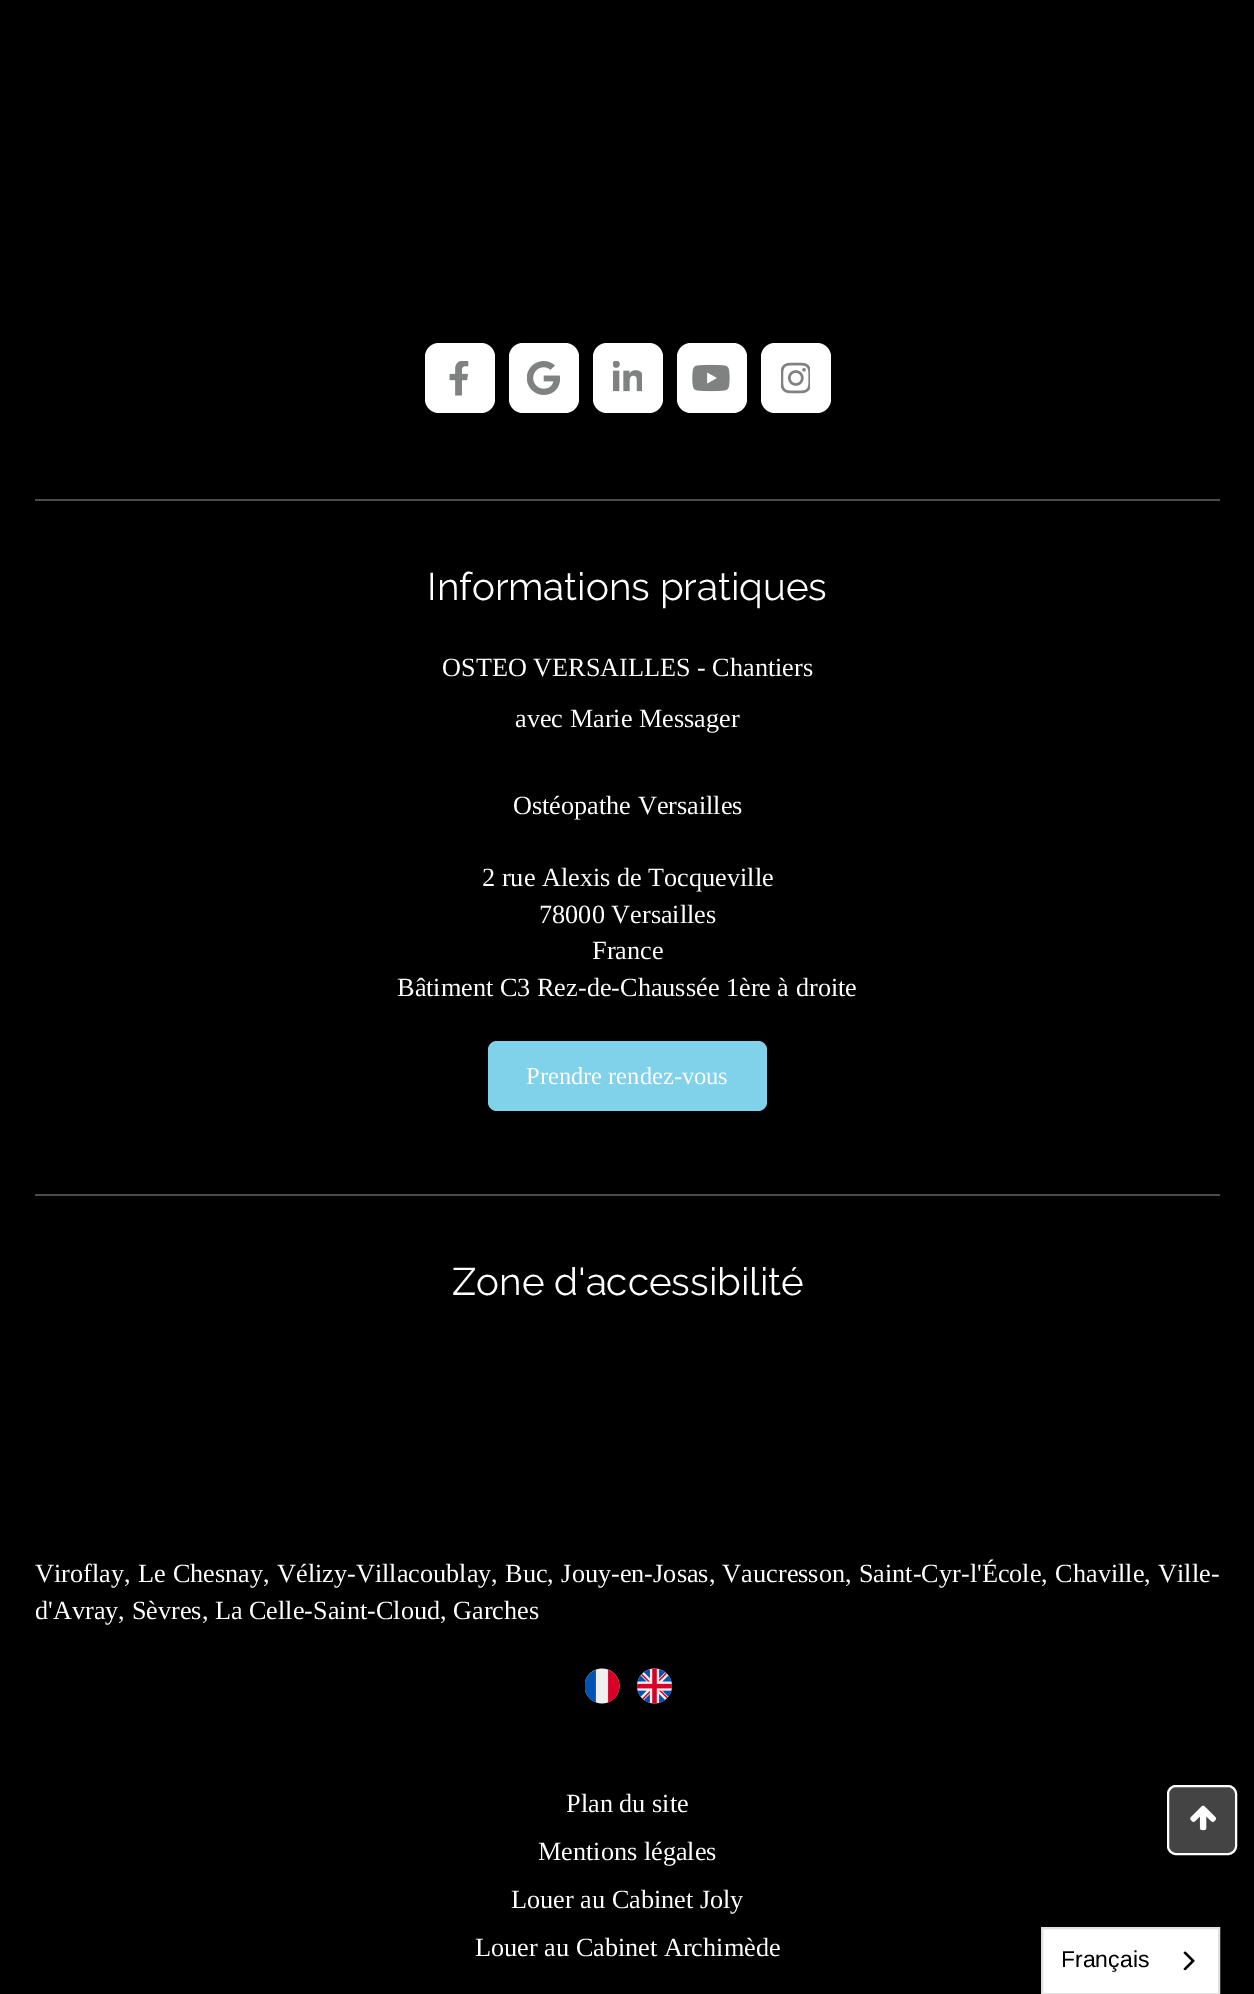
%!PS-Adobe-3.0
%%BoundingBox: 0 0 1254 1994
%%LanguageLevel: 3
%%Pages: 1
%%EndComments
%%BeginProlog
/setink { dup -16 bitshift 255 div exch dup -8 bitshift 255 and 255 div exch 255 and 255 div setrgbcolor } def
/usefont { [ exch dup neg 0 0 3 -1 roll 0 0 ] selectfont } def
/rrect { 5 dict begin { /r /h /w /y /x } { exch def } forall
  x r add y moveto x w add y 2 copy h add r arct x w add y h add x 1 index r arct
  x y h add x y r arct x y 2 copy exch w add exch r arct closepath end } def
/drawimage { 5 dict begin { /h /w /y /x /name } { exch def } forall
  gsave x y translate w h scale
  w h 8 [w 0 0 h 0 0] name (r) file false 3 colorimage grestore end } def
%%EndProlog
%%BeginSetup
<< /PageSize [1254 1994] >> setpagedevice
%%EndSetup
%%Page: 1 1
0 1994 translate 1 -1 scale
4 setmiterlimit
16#000000 setink
0 0 1254 1994 rectfill
16#FFFFFF setink
425 343 70 70 14 rrect fill
(img1.raw) 449 361 20 35 drawimage
509 343 70 70 14 rrect fill
(img2.raw) 527 361 33 34 drawimage
593 343 70 70 14 rrect fill
(img3.raw) 613 361 29 31 drawimage
677 343 70 70 14 rrect fill
(img4.raw) 692 364 38 28 drawimage
761 343 70 70 14 rrect fill
(img5.raw) 781 362 29 32 drawimage
16#4B4B4B setink
35 499 1185 2 rectfill
/Raleway-Regular 38.5 usefont
16#FFFFFF setink
427 600 moveto (Informations pratiques) show
/LiberationSerif-Regular 26.25 usefont
[
    [(OSTEO VERSAILLES - Chantiers) 442 676]
    [(avec Marie Messager) 515 727]
    [(Ostéopathe Versailles) 513 814]
    [(2 rue Alexis de Tocqueville) 482 886]
    [(78000 Versailles) 539 923]
    [(France) 592 959]
    [(Bâtiment C3 Rez-de-Chaussée 1ère à droite) 397 996]
] { aload pop moveto show } forall
16#7FD2E9 setink
488 1041 279 70 9 rrect fill
/LiberationSerif-Regular 24.5 usefont
16#FFFFFF setink
526 1084 moveto (Prendre rendez-vous) show
16#4B4B4B setink
35 1194 1185 2 rectfill
/Raleway-Regular 38.5 usefont
16#FFFFFF setink
452 1295 moveto (Zone d'accessibilité) show
/LiberationSerif-Regular 26.25 usefont
35 1582 moveto 0.75 0 32 (Viroflay, Le Chesnay, Vélizy-Villacoublay, Buc, Jouy-en-Josas, Vaucresson, Saint-Cyr-l'École, Chaville, Ville-) widthshow
35 1619 moveto (d'Avray, Sèvres, La Celle-Saint-Cloud, Garches) show
(img6.raw) 585 1668 35 36 drawimage
(img7.raw) 637 1668 35 36 drawimage
[
    [(Plan du site) 566 1812]
    [(Mentions légales) 538 1860]
    [(Louer au Cabinet Joly) 511 1908]
    [(Louer au Cabinet Archimède) 475 1956]
] { aload pop moveto show } forall
16#444444 setink
1168 1786 68 68 8 rrect gsave fill grestore
16#FFFFFF setink
2 setlinewidth
stroke
(img8.raw) 1190 1805 26 26 drawimage
1042 1928 moveto 1219 1928 lineto 1219 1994 lineto 1042 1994 lineto closepath gsave fill grestore
16#E0E0E0 setink
stroke
/LiberationSans-Regular 23 usefont
16#000000 setink
1061 1967 moveto (Français) show
(img9.raw) 1183 1951 12 20 drawimage
showpage
%%EOF
